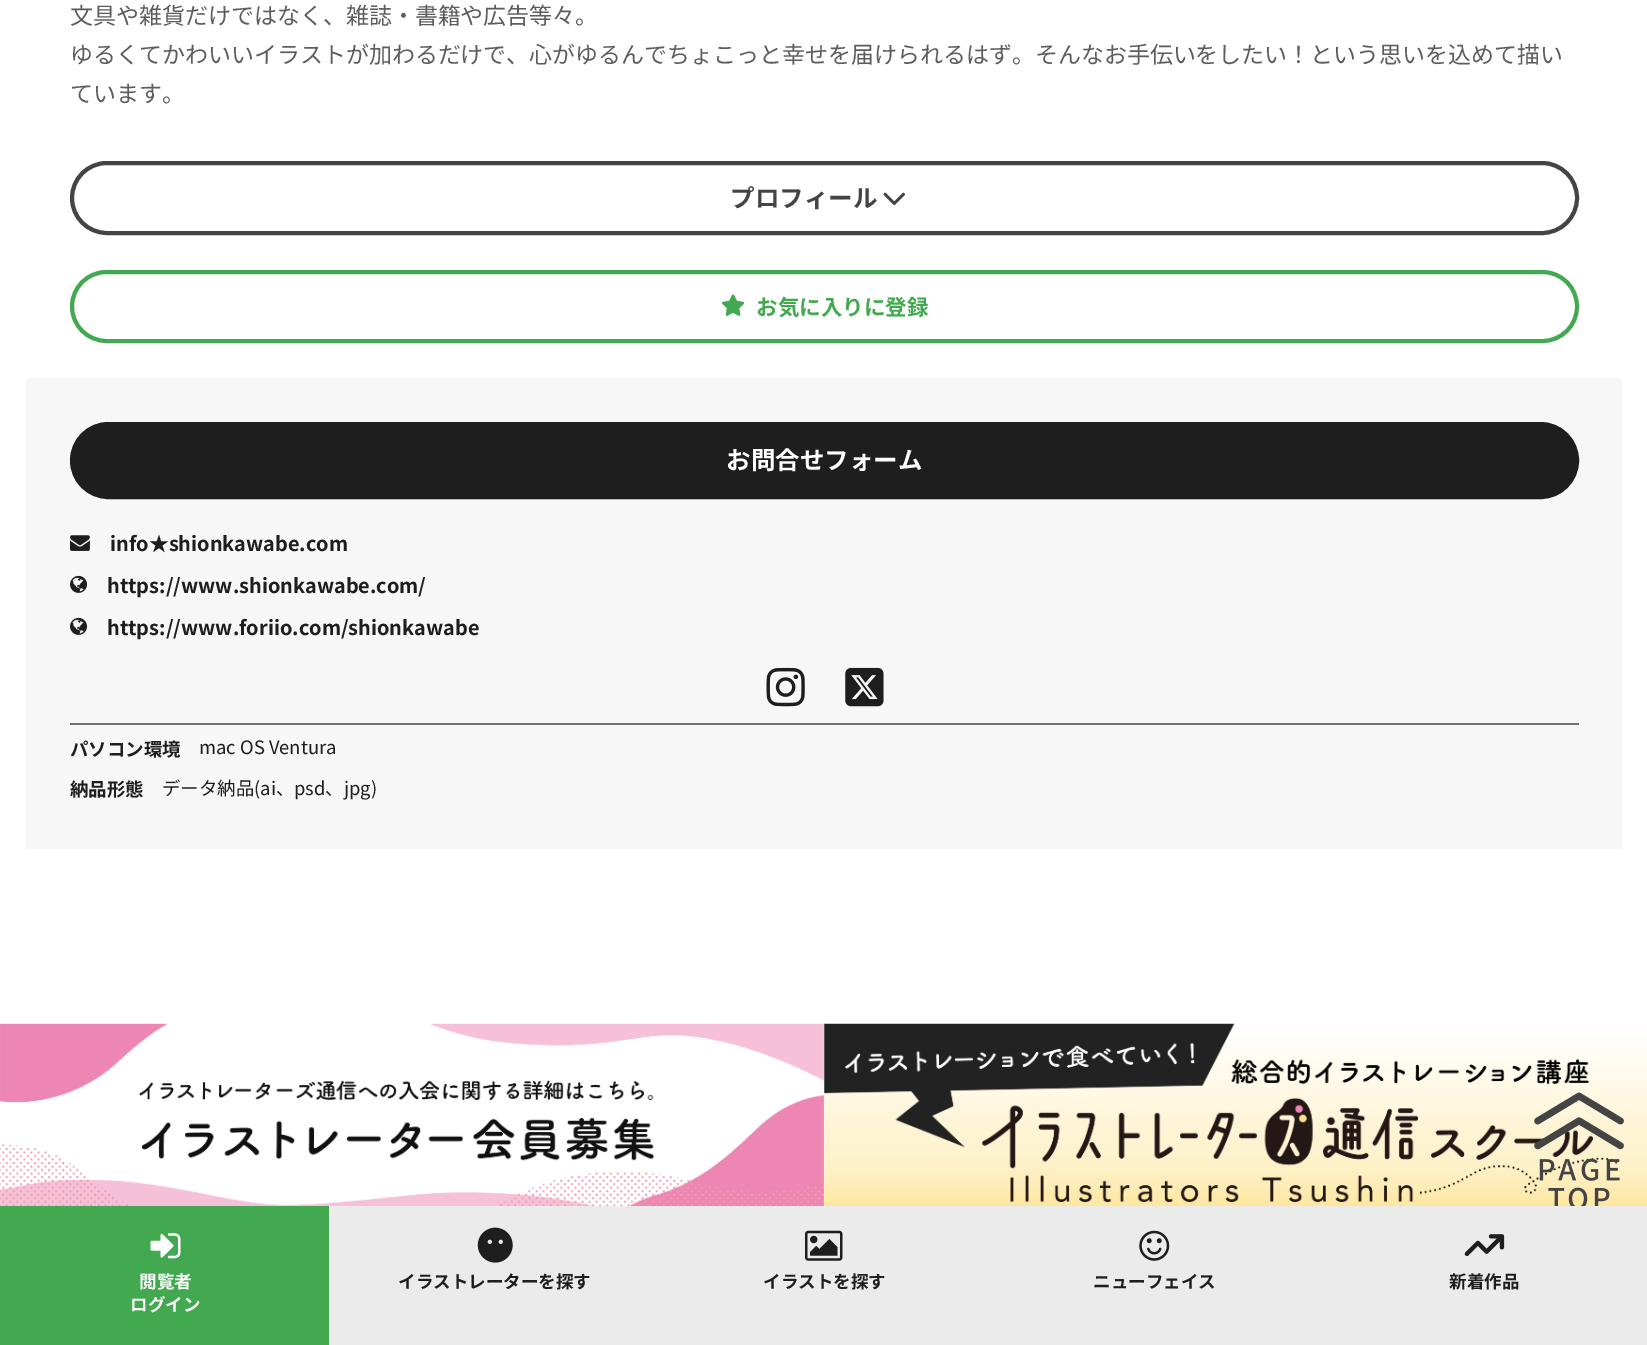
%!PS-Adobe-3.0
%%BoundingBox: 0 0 1647 1345
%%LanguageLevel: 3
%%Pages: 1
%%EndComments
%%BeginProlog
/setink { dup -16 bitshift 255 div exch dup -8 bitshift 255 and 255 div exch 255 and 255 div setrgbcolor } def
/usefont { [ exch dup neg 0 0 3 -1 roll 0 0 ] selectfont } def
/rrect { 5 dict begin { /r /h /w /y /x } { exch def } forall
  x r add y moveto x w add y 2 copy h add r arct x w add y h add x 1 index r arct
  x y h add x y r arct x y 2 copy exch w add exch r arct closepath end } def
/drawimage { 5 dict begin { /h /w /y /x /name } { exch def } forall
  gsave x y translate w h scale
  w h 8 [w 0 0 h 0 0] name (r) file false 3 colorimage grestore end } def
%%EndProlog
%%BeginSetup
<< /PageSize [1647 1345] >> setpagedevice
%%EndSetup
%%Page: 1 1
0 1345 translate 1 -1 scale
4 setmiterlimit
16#FFFFFF setink
0 0 1647 1345 rectfill
/NotoSansJP-Regular 22.97 usefont
16#5D5D5D setink
[
    [(文具や雑貨だけではなく、雑誌・書籍や広告等々。) 70 24]
    [(ゆるくてかわいいイラストが加わるだけで、心がゆるんでちょこっと幸せを届けられるはず。そんなお手伝いをしたい！という思いを込めて描い) 70 63]
    [(ています。) 70 102]
] { aload pop moveto show } forall
16#444444 setink
4 setlinewidth
72 163 1505 70 35 rrect stroke
/NotoSansJP-Bold 24.5 usefont
730 207 moveto (プロフィール) show
(img1.raw) 883 192 22 13 drawimage
16#42A950 setink
72 272 1505 69 34.5 rrect stroke
(img2.raw) 722 294 23 22 drawimage
/NotoSansJP-Bold 21.5 usefont
756 315 moveto (お気に入りに登録) show
16#F7F7F7 setink
26 378 1596 471 rectfill
16#1E1E1E setink
72 424 1505 73 36.5 rrect gsave fill grestore
stroke
/NotoSansJP-Bold 24.5 usefont
16#FFFFFF setink
726 469 moveto (お問合せフォーム) show
(img3.raw) 70 535 20 16 drawimage
/NotoSansJP-Bold 19.9 usefont
16#1E1E1E setink
110 551 moveto (info★shionkawabe.com) show
(img4.raw) 70 575 18 18 drawimage
107 593 moveto (https://www.shionkawabe.com/) show
(img4.raw) 70 617 18 18 drawimage
107 635 moveto (https://www.foriio.com/shionkawabe) show
16#707070 setink
70 723 1509 2 rectfill
(img5.raw) 766 667 39 40 drawimage
(img6.raw) 845 667 39 40 drawimage
/NotoSansJP-Bold 18.4 usefont
16#1E1E1E setink
70 756 moveto (パソコン環境) show
/NotoSansJP-Regular 18.4 usefont
199 754 moveto (mac OS Ventura) show
/NotoSansJP-Bold 18.4 usefont
70 796 moveto (納品形態) show
/NotoSansJP-Regular 18.4 usefont
162 795 moveto (データ納品\(ai、psd、jpg\)) show
(img7.raw) 0 1023 824 183 drawimage
(img8.raw) 824 1023 823 183 drawimage
16#EBEBEB setink
329 1206 1318 139 rectfill
16#42A950 setink
0 1206 329 139 rectfill
(img9.raw) 150 1233 31 26 drawimage
/NotoSansJP-Bold 17.5 usefont
16#FFFFFF setink
139 1288 moveto (閲覧者) show
130 1311 moveto (ログイン) show
(img10.raw) 477 1227 36 36 drawimage
16#1E1E1E setink
398 1288 moveto (イラストレーターを探す) show
(img11.raw) 805 1230 38 31 drawimage
763 1288 moveto (イラストを探す) show
(img12.raw) 1139 1230 31 31 drawimage
1093 1288 moveto (ニューフェイス) show
(img13.raw) 1464 1234 41 22 drawimage
1449 1288 moveto (新着作品) show
(img14.raw) 1534 1092 90 114 drawimage
showpage
%%EOF
